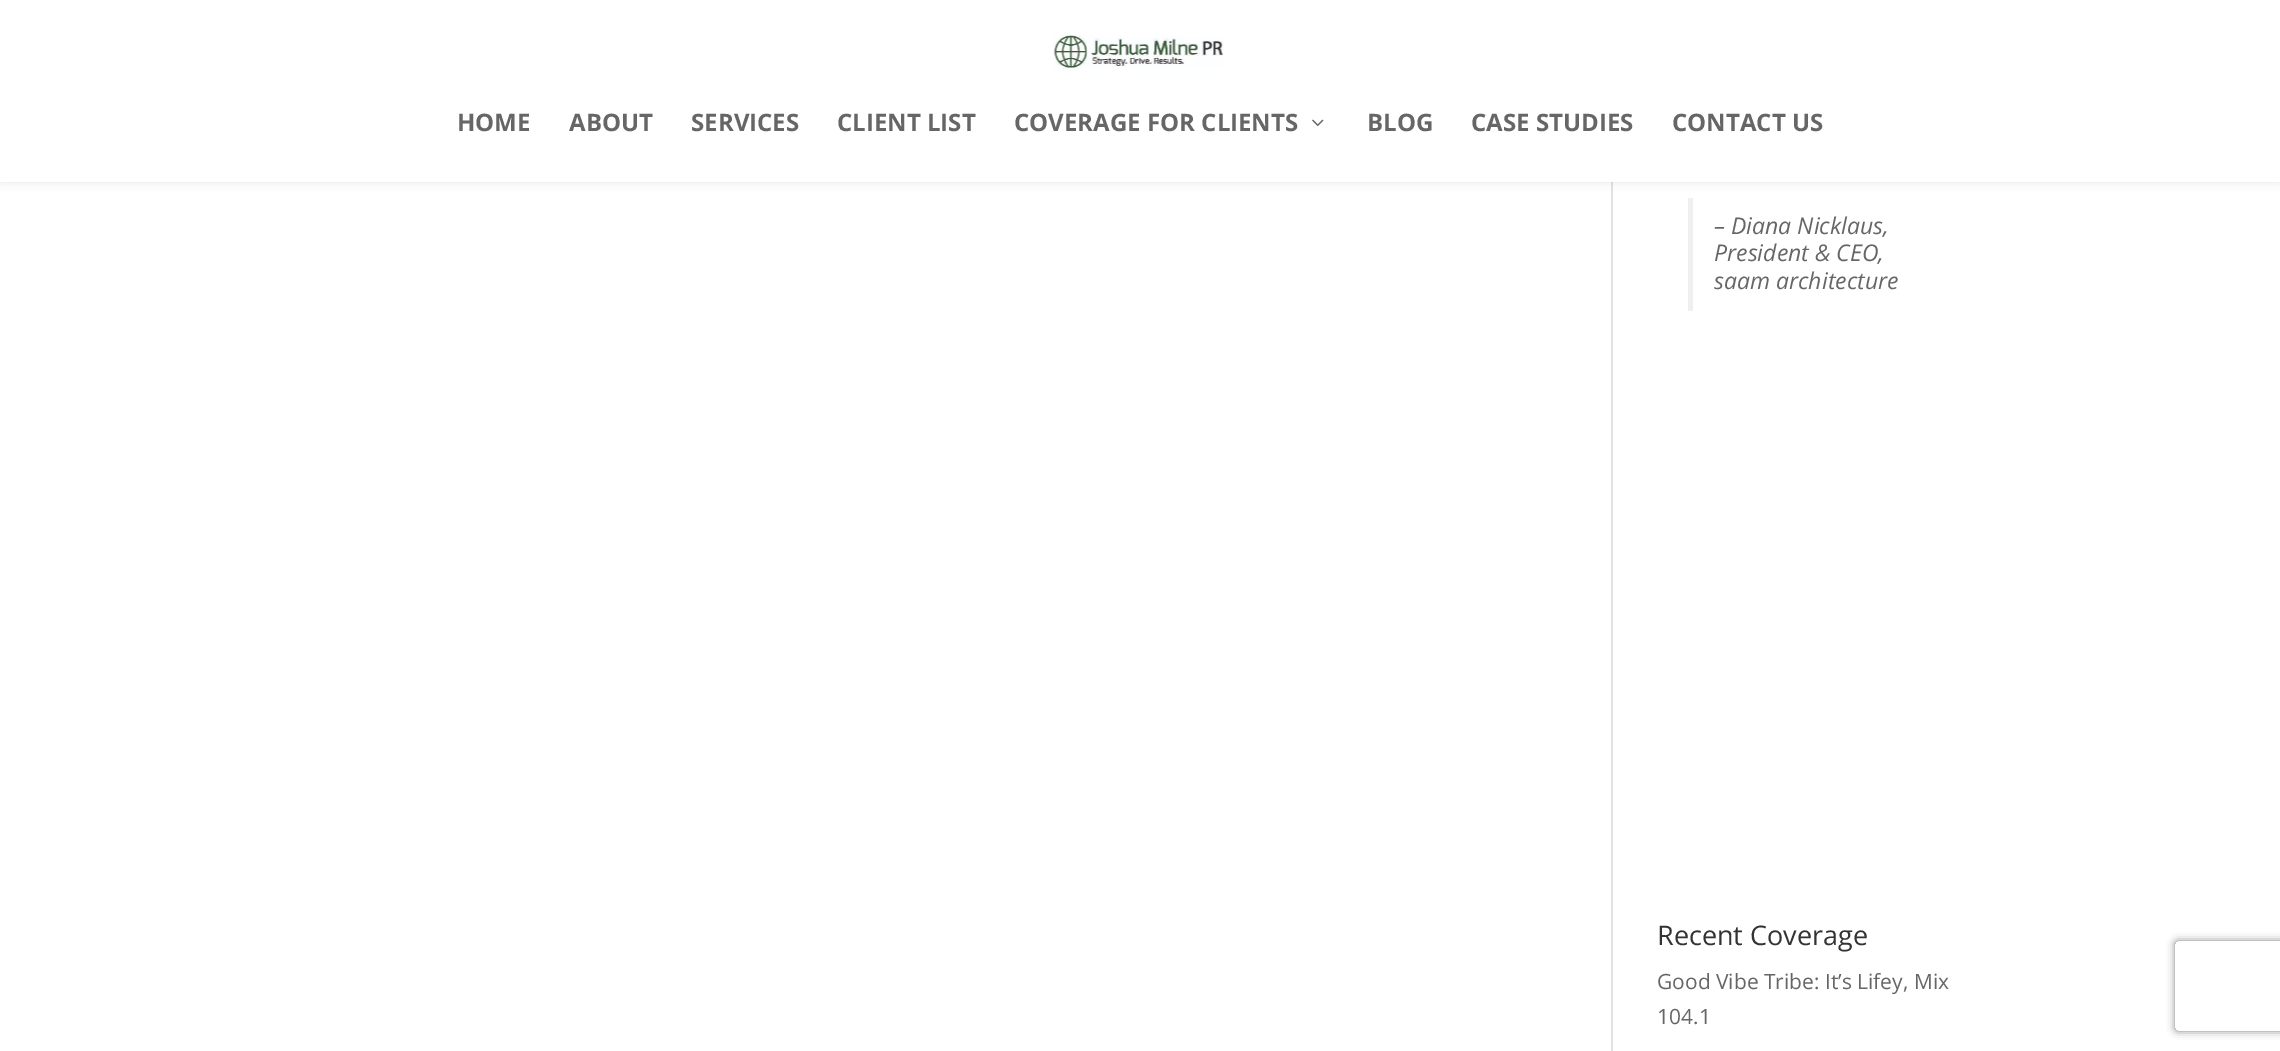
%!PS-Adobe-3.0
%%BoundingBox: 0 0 2280 1051
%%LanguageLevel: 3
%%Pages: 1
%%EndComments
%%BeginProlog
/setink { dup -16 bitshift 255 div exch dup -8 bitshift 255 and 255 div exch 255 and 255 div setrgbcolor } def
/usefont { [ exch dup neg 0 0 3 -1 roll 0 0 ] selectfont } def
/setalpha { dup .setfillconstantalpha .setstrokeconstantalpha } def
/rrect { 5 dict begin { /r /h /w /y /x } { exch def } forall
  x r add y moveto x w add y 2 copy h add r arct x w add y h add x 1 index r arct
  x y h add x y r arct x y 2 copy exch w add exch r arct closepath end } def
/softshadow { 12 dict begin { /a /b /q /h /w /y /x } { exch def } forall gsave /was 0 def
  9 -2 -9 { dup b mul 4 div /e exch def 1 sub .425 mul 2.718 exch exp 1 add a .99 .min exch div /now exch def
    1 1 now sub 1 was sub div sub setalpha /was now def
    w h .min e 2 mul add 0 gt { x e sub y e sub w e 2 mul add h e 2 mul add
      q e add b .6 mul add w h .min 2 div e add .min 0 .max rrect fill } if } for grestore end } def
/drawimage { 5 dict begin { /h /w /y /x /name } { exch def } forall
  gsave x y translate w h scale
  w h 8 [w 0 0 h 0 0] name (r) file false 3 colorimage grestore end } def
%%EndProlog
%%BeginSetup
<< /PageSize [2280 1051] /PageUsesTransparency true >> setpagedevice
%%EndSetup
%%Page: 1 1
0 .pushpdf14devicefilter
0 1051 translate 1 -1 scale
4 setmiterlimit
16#FFFFFF setink
0 0 2280 1051 rectfill
16#E2E2E2 setink
1611 182 2 869 rectfill
16#000000 setink
0 0 2280 182 0 5 0.1 softshadow
16#FFFFFF setink
0 0 2280 182 rectfill
(img1.raw) 1053 35 171 34 drawimage
/OpenSans-Bold 24 usefont
16#666666 setink
[
    [(HOME) 457 131]
    [(ABOUT) 569 131]
    [(SERVICES) 691 131]
    [(CLIENT LIST) 837 131]
    [(COVERAGE FOR CLIENTS) 1014 131]
] { aload pop moveto show } forall
(img2.raw) 1312 119 12 7 drawimage
[
    [(BLOG) 1367 131]
    [(CASE STUDIES) 1471 131]
    [(CONTACT US) 1672 131]
] { aload pop moveto show } forall
16#EFEFEF setink
1688 198 5 113 rectfill
/OpenSans-Italic 23 usefont
16#666666 setink
[
    [(– Diana Nicklaus,) 1714 234]
    [(President & CEO,) 1714 261]
    [(saam architecture) 1714 289]
] { aload pop moveto show } forall
/OpenSans-Regular 27 usefont
16#333333 setink
1657 945 moveto (Recent Coverage) show
/OpenSans-Regular 21 usefont
16#666666 setink
1657 989 moveto (Good Vibe Tribe: It’s Lifey, Mix) show
1657 1024 moveto (104.1) show
gsave
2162 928 moveto 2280 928 lineto 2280 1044 lineto 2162 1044 lineto closepath 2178 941 moveto 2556 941 lineto 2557.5 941 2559 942.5 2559 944 curveto 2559 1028 lineto 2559 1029.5 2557.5 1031 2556 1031 curveto 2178 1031 lineto 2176.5 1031 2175 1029.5 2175 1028 curveto 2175 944 lineto 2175 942.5 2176.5 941 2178 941 curveto closepath eoclip newpath
16#808080 setink
2175 941 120 90 3 4 1 softshadow
grestore
.poppdf14devicefilter showpage
%%EOF
